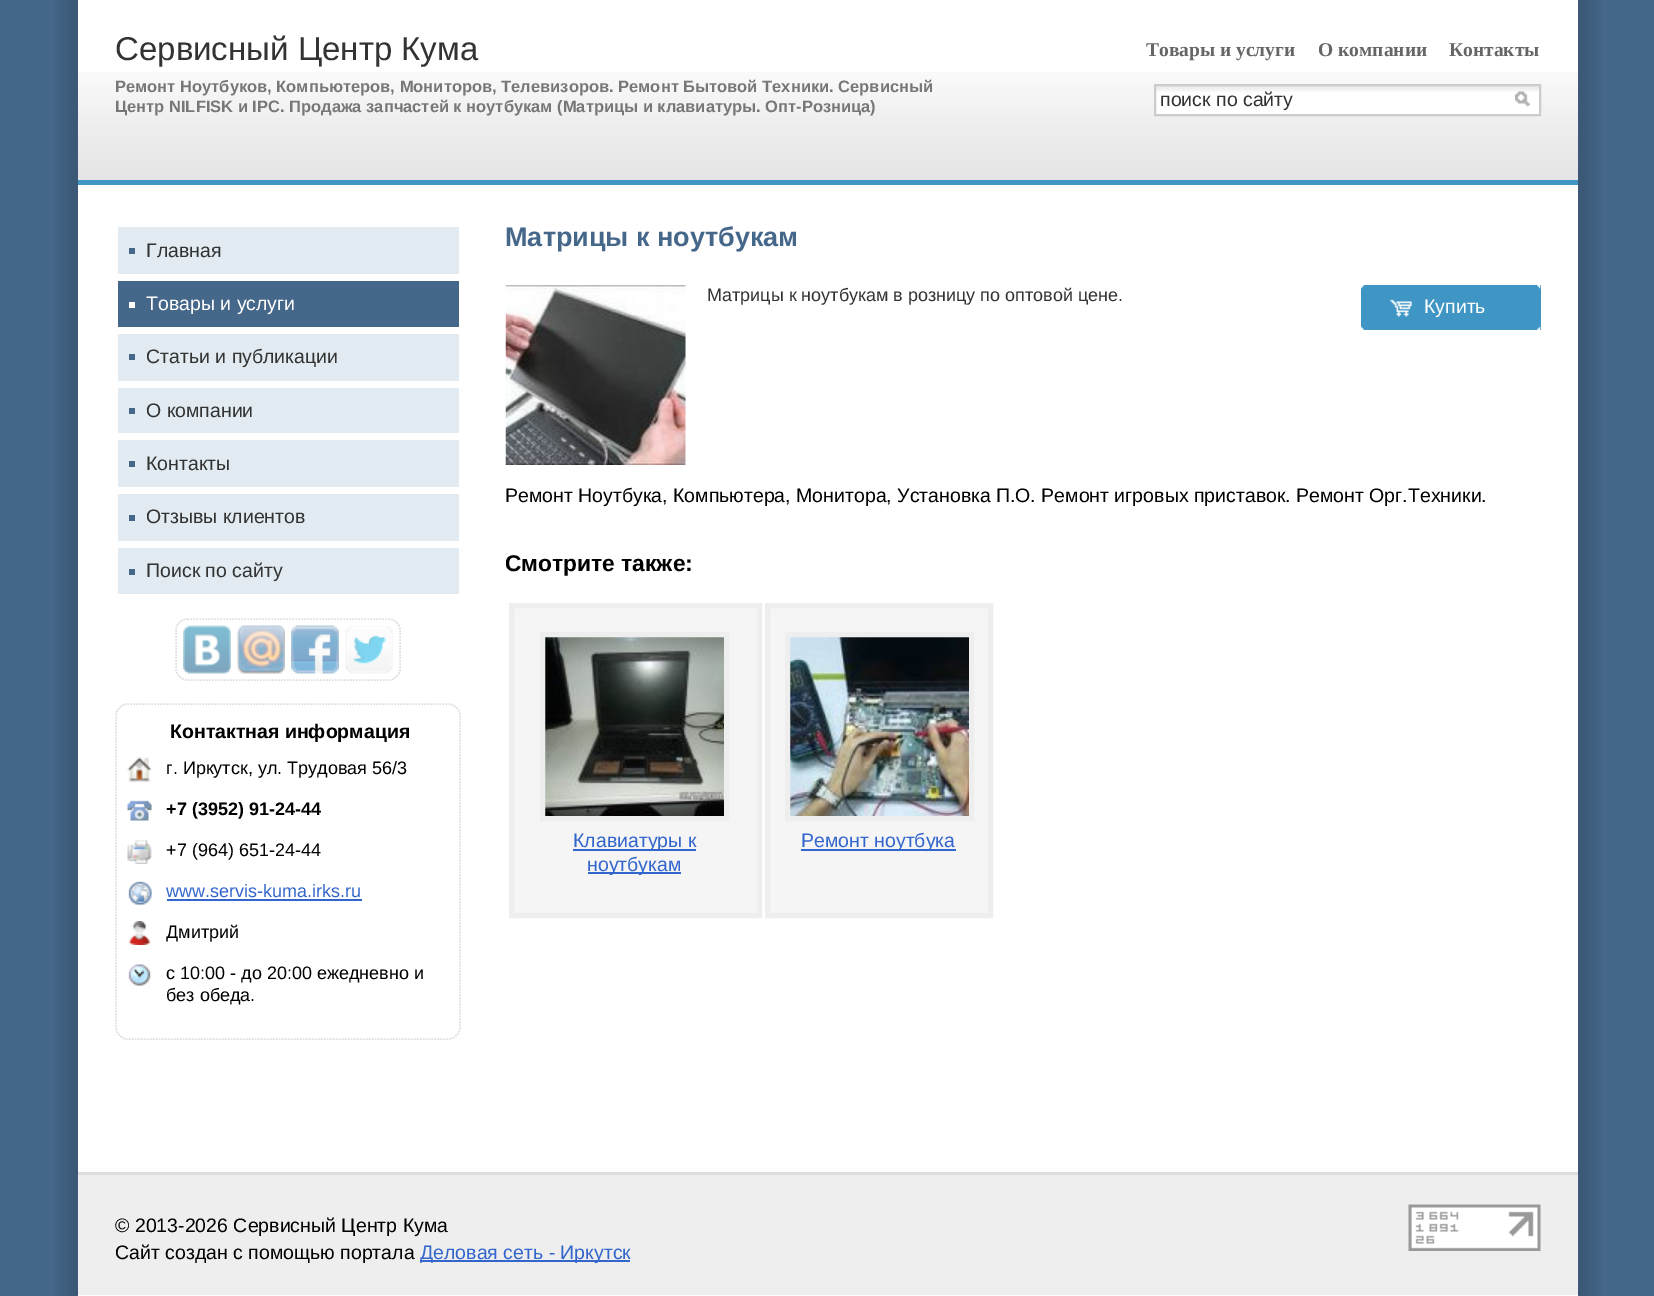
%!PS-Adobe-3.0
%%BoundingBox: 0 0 1654 1296
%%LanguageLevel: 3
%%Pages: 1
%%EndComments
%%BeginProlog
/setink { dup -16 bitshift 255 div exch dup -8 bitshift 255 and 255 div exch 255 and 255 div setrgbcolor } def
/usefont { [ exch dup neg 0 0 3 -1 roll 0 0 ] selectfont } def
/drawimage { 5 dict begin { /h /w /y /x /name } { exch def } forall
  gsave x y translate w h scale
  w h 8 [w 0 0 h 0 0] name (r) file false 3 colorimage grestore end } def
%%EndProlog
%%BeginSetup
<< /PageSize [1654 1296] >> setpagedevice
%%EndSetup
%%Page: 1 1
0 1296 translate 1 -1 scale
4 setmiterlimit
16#456789 setink
0 0 1654 1296 rectfill
(img1.raw) 55 0 1546 1296 drawimage
16#FFFFFF setink
78 0 1500 1296 rectfill
(img2.raw) 78 72 1500 108 drawimage
16#3F96C4 setink
78 180 1500 5 rectfill
/LiberationSans-Regular 33 usefont
16#333333 setink
115 60 moveto (Сервисный Центр Кума) show
/LiberationSans-Bold 16.5 usefont
16#777777 setink
115 92 moveto (Ремонт Ноутбуков, Компьютеров, Мониторов, Телевизоров. Ремонт Бытовой Техники. Сервисный) show
115 112 moveto (Центр NILFISK и IPC. Продажа запчастей к ноутбукам \(Матрицы и клавиатуры. Опт-Розница\)) show
/LiberationSerif-Bold 19.5 usefont
16#666666 setink
[
    [(Товары и услуги) 1146 56]
    [(О компании) 1318 56]
    [(Контакты) 1449 56]
] { aload pop moveto show } forall
16#FFFFFF setink
1156 92 383 22 rectfill
(img3.raw) 1153 85 386 7 drawimage
16#CCCCCC setink
2 setlinewidth
1155 85 385 30 rectstroke
/LiberationSans-Regular 19.5 usefont
16#333333 setink
1160 106 moveto (поиск по сайту) show
(img4.raw) 1515 91 15 16 drawimage
16#E1EBF1 setink
118 227 341 47 rectfill
16#456789 setink
129 248 6 6 rectfill
16#333333 setink
146 257 moveto (Главная) show
16#456789 setink
118 281 341 46 rectfill
16#FFFFFF setink
129 302 6 6 rectfill
146 310 moveto (Товары и услуги) show
16#E1EBF1 setink
118 334 341 47 rectfill
16#456789 setink
129 354 6 6 rectfill
16#333333 setink
146 363 moveto (Статьи и публикации) show
16#E1EBF1 setink
118 388 341 45 rectfill
16#456789 setink
129 408 6 6 rectfill
16#333333 setink
146 417 moveto (О компании) show
16#E1EBF1 setink
118 440 341 47 rectfill
16#456789 setink
129 461 6 6 rectfill
16#333333 setink
146 470 moveto (Контакты) show
16#E1EBF1 setink
118 494 341 47 rectfill
16#456789 setink
129 515 6 6 rectfill
16#333333 setink
146 523 moveto (Отзывы клиентов) show
16#E1EBF1 setink
118 548 341 46 rectfill
16#456789 setink
129 569 6 6 rectfill
16#333333 setink
146 577 moveto (Поиск по сайту) show
16#DDDDDD setink
1.5 setlinewidth
[1.5 1.5] 0 setdash
187.5 619 moveto 388.5 619 lineto 394.5 619 400 624 400 630 curveto 400 669 lineto 400 675 394.5 680 388.5 680 curveto 187.5 680 lineto 181.5 680 176 675 176 669 curveto 176 630 lineto 176 624 181.5 619 187.5 619 curveto closepath stroke
(img5.raw) 183 625 48 49 drawimage
(img6.raw) 237 625 48 49 drawimage
(img7.raw) 291 625 48 49 drawimage
(img8.raw) 345 626 48 48 drawimage
127.5 704 moveto 448.5 704 lineto 454.5 704 460 709.5 460 715.5 curveto 460 1027.5 lineto 460 1033.5 454.5 1039 448.5 1039 curveto 127.5 1039 lineto 121.5 1039 116 1033.5 116 1027.5 curveto 116 715.5 lineto 116 709.5 121.5 704 127.5 704 curveto closepath stroke
/LiberationSans-Bold 19.5 usefont
16#000000 setink
170 738 moveto (Контактная информация) show
(img9.raw) 127 757 25 25 drawimage
/LiberationSans-Regular 18 usefont
166 774 moveto (г. Иркутск, ул. Трудовая 56/3) show
(img10.raw) 127 800 25 21 drawimage
/LiberationSans-Bold 18 usefont
166 815 moveto (+7 \(3952\) 91-24-44) show
(img11.raw) 127 840 25 24 drawimage
/LiberationSans-Regular 18 usefont
166 856 moveto (+7 \(964\) 651-24-44) show
(img12.raw) 128 881 24 24 drawimage
16#3366CC setink
166 897 moveto (www.servis-kuma.irks.ru) show
167 899 195 2 rectfill
(img13.raw) 128 921 23 24 drawimage
16#000000 setink
166 938 moveto (Дмитрий) show
(img14.raw) 128 964 23 22 drawimage
166 979 moveto (с 10:00 - до 20:00 ежедневно и) show
166 1001 moveto (без обеда.) show
/LiberationSans-Bold 27 usefont
16#456789 setink
505 246 moveto (Матрицы к ноутбукам) show
(img15.raw) 505 285 181 180 drawimage
/LiberationSans-Regular 18 usefont
16#333333 setink
707 301 moveto (Матрицы к ноутбукам в розницу по оптовой цене.) show
16#3F96C4 setink
1361 285 180 45 rectfill
(img16.raw) 1537 285 4 45 drawimage
(img17.raw) 1361 285 3 45 drawimage
(img18.raw) 1390 299 22 18 drawimage
/LiberationSans-Regular 19.5 usefont
16#FFFFFF setink
1424 313 moveto (Купить) show
16#000000 setink
505 502 moveto (Ремонт Ноутбука, Компьютера, Монитора, Установка П.О. Ремонт игровых приставок. Ремонт Орг.Техники.) show
gsave
506 222 1035 722 rectclip
/LiberationSans-Bold 22.75 usefont
505 571 moveto (Смотрите также:) show
grestore
16#F5F5F5 setink
511.5 605.5 moveto 759.5 605.5 lineto 759.5 915.5 lineto 511.5 915.5 lineto closepath gsave fill grestore
16#EEEEEE setink
5 setlinewidth
[] 0 setdash
stroke
(img19.raw) 545 637 179 179 drawimage
542.5 634.5 184 184 rectstroke
16#3366CC setink
573 849 123 2 rectfill
573 847 moveto (Клавиатуры к) show
588 872 93 2 rectfill
587 871 moveto (ноутбукам) show
16#F5F5F5 setink
767.5 605.5 moveto 990.5 605.5 lineto 990.5 915.5 lineto 767.5 915.5 lineto closepath gsave fill grestore
16#EEEEEE setink
stroke
(img20.raw) 790 637 179 179 drawimage
787.5 634.5 184 184 rectstroke
16#3366CC setink
801 849 155 2 rectfill
801 847 moveto (Ремонт ноутбука) show
16#EEEEEE setink
78 1175 1500 120 rectfill
16#DDDDDD setink
78 1172 1500 3 rectfill
16#000000 setink
115 1232 moveto (© 2013-2026 Сервисный Центр Кума) show
115 1259 moveto (Сайт создан с помощью портала) show
16#3366CC setink
420 1260 210 2 rectfill
420 1259 moveto (Деловая сеть - Иркутск) show
(img21.raw) 1408 1204 133 47 drawimage
showpage
%%EOF
